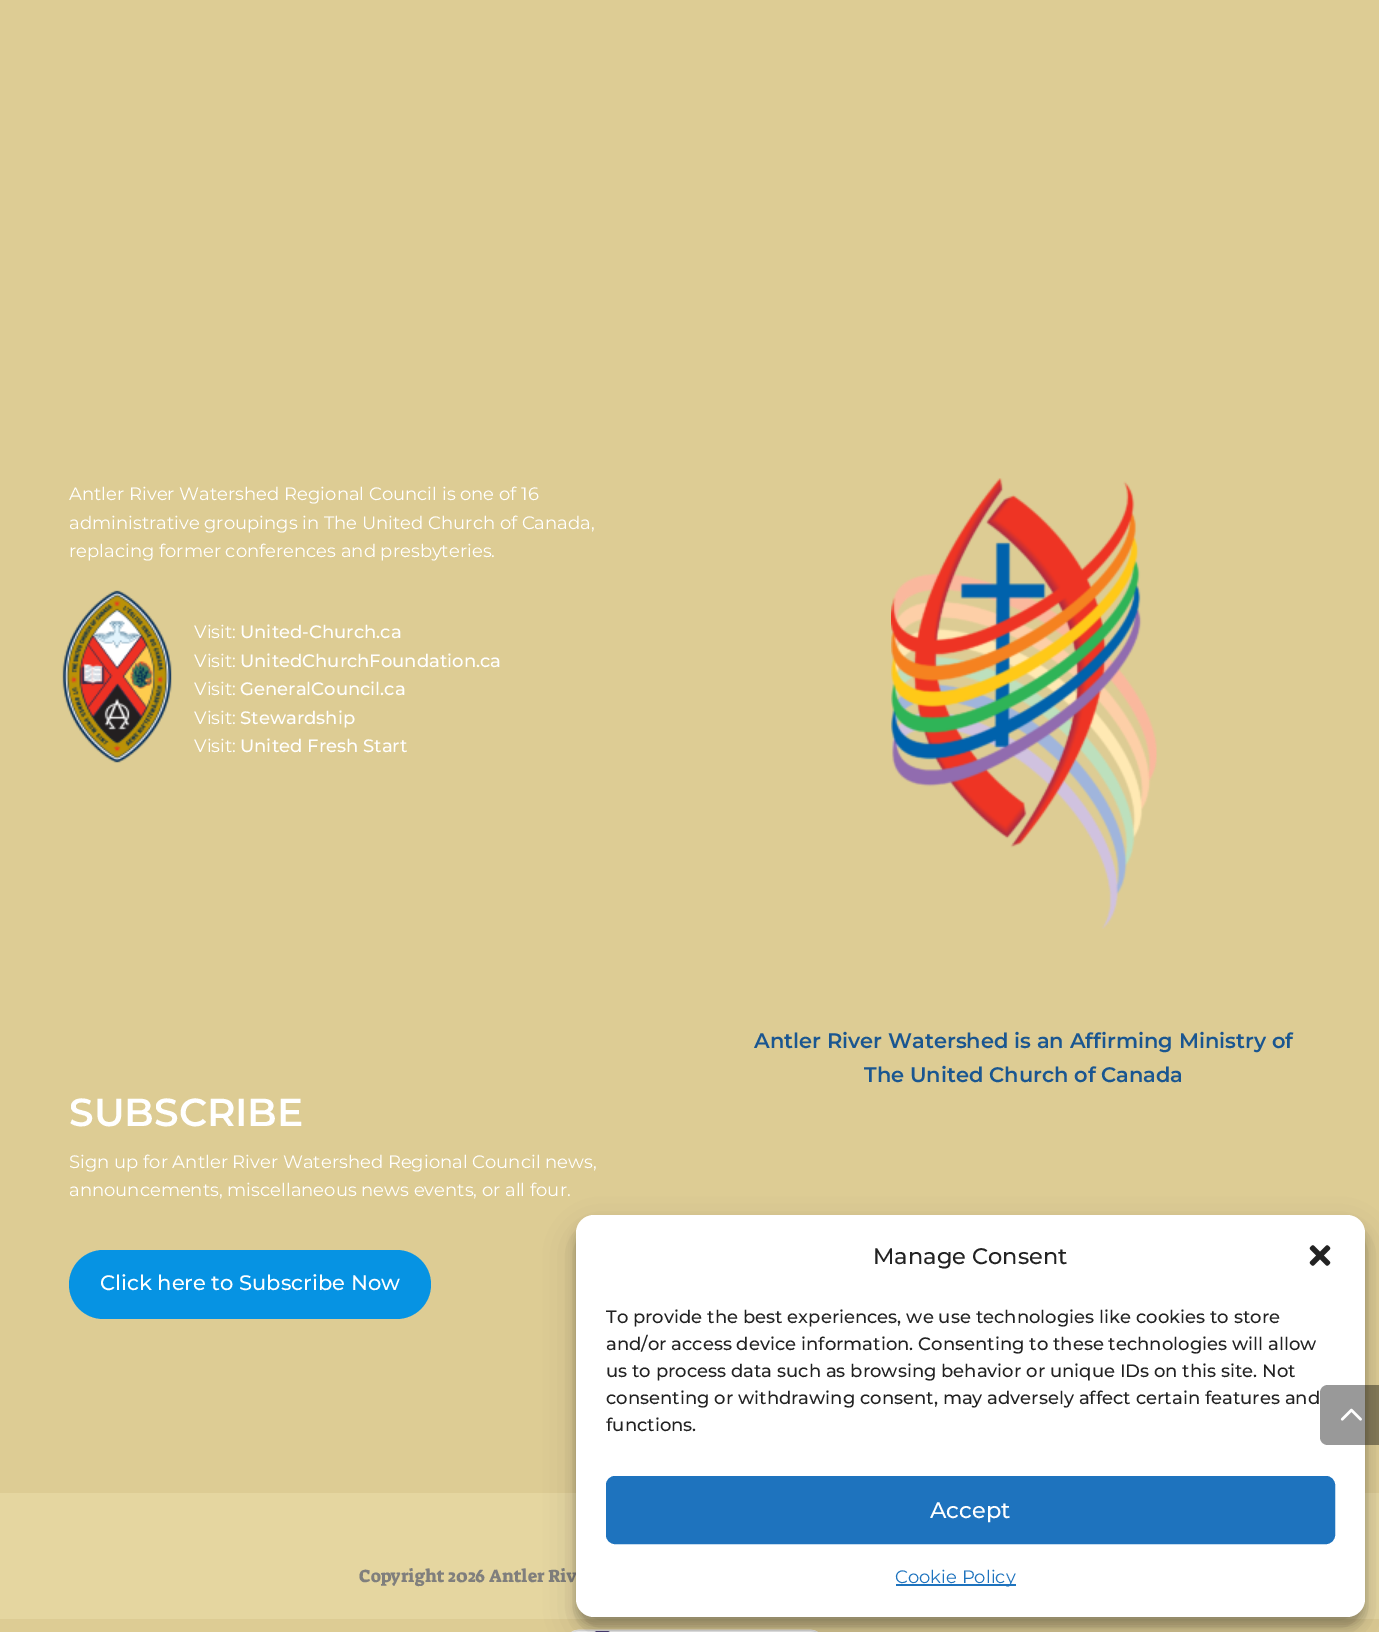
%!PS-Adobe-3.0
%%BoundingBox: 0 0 1379 1632
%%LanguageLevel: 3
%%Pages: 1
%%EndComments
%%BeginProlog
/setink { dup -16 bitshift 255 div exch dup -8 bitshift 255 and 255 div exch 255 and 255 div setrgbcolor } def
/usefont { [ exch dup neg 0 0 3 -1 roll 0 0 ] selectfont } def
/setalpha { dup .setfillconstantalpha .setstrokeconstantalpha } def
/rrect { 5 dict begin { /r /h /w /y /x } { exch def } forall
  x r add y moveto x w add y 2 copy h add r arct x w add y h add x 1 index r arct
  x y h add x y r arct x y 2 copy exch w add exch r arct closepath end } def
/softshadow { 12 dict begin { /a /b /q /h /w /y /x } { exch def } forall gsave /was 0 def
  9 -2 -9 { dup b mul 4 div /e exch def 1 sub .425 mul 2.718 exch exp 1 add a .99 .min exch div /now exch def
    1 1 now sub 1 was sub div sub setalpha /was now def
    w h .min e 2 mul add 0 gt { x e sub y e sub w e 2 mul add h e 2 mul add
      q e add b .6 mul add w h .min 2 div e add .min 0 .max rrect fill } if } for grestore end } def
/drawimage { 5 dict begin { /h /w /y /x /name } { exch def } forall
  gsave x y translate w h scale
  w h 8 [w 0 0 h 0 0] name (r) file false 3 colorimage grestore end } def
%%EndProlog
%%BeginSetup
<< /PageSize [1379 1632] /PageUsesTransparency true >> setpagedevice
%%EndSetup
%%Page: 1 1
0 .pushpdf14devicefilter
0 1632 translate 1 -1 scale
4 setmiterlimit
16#DDCC94 setink
0 0 1379 1632 rectfill
/Montserrat-Regular 18 usefont
16#FFFFFF setink
[
    [(Antler River Watershed Regional Council is one of 16) 69 500]
    [(administrative groupings in The United Church of Canada,) 69 529]
    [(replacing former conferences and presbyteries.) 69 557]
] { aload pop moveto show } forall
(img1.raw) 62 590 110 173 drawimage
194 638 moveto (Visit:) show
/Montserrat-Medium 18 usefont
240 638 moveto (United-Church.ca) show
/Montserrat-Regular 18 usefont
194 667 moveto (Visit:) show
/Montserrat-Medium 18 usefont
240 667 moveto (UnitedChurchFoundation.ca) show
/Montserrat-Regular 18 usefont
194 695 moveto (Visit:) show
/Montserrat-Medium 18 usefont
240 695 moveto (GeneralCouncil.ca) show
/Montserrat-Regular 18 usefont
194 724 moveto (Visit:) show
/Montserrat-Medium 18 usefont
240 724 moveto (Stewardship) show
/Montserrat-Regular 18 usefont
194 752 moveto (Visit:) show
/Montserrat-Medium 18 usefont
240 752 moveto (United Fresh Start) show
(img2.raw) 891 478 266 451 drawimage
/Montserrat-SemiBold 21 usefont
16#1A5690 setink
754 1048 moveto (Antler River Watershed is an Affirming Ministry of) show
864 1082 moveto (The United Church of Canada) show
/Montserrat-SemiBold 39 usefont
16#FFFFFF setink
69 1126 moveto (SUBSCRIBE) show
/Montserrat-Regular 18 usefont
69 1168 moveto (Sign up for Antler River Watershed Regional Council news,) show
69 1196 moveto (announcements, miscellaneous news events, or all four.) show
16#0693E3 setink
69 1250 362 69 34.5 rrect fill
/Montserrat-Medium 21 usefont
16#FFFFFF setink
100 1290 moveto (Click here to Subscribe Now) show
16#E5D6A0 setink
0 1493 1379 126 rectfill
/SuezOne-Regular 18 usefont
16#807F7D setink
359 1582 moveto (Copyright 2026 Antler Riv) show
(img5.raw) 571 1629 247 3 drawimage
16#000000 setink
576 1224 789 402 18 4.5 0.23 softshadow
576 1230 789 402 18 15 0.19 softshadow
16#FFFFFF setink
576 1215 789 402 18 rrect fill
0.4 setalpha
16#000000 setink
1328 1385 moveto 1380 1385 lineto 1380 1445 lineto 1328 1445 lineto 1323.5 1445 1320 1441.5 1320 1437 curveto 1320 1393 lineto 1320 1388.5 1323.5 1385 1328 1385 curveto closepath fill
1 setalpha
(img3.raw) 1340 1408 22 13 drawimage
/Montserrat-Medium 22.5 usefont
16#222222 setink
873 1264 moveto (Manage Consent) show
(img4.raw) 1309 1245 22 21 drawimage
/Montserrat-Medium 18 usefont
[
    [(To provide the best experiences, we use technologies like cookies to store) 606 1323]
    [(and/or access device information. Consenting to these technologies will allow) 606 1350]
    [(us to process data such as browsing behavior or unique IDs on this site. Not) 606 1377]
    [(consenting or withdrawing consent, may adversely affect certain features and) 606 1404]
    [(functions.) 606 1431]
] { aload pop moveto show } forall
16#1E73BE setink
607 1477 727 66 8 rrect gsave fill grestore
2 setlinewidth
stroke
/Montserrat-Medium 22.5 usefont
16#FFFFFF setink
930 1518 moveto (Accept) show
16#1E73BE setink
896 1584 120 2 rectfill
/Montserrat-Regular 18 usefont
895 1583 moveto (Cookie Policy) show
.poppdf14devicefilter showpage
%%EOF
